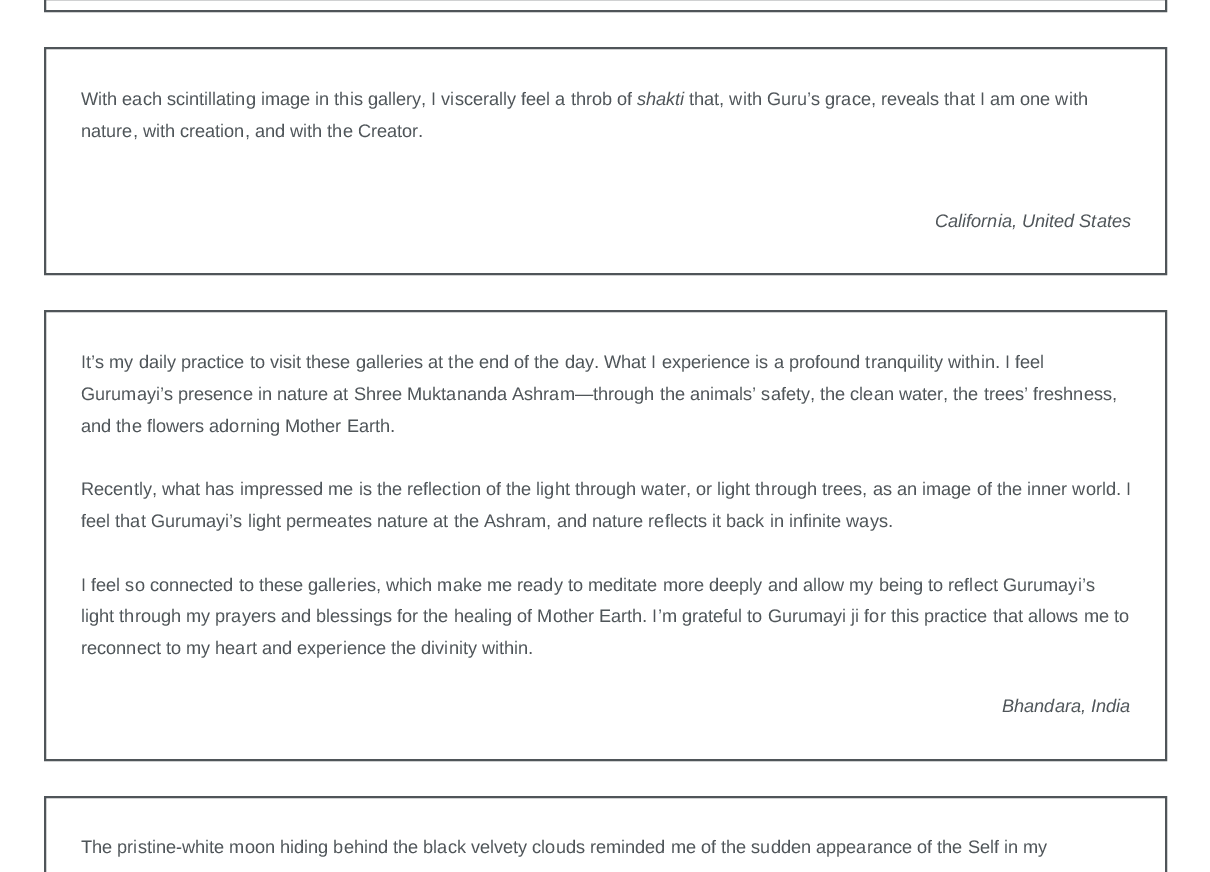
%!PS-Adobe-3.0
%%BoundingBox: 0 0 1210 872
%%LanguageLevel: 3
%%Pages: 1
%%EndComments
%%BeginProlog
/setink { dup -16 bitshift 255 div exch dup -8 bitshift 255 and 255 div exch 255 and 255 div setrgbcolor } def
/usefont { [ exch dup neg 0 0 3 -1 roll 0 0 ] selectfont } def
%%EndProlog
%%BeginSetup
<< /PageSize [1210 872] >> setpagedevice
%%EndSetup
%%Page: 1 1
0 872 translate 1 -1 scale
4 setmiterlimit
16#FFFFFF setink
0 0 1210 872 rectfill
16#4F5559 setink
2 setlinewidth
45 -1 1121 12 rectstroke
45 48 1121 226 rectstroke
/LiberationSans-Regular 18.17 usefont
81 105 moveto (With each scintillating image in this gallery, I viscerally feel a throb of) show
/LiberationSans-Italic 18.17 usefont
637 105 moveto (shakti) show
/LiberationSans-Regular 18.17 usefont
689 105 moveto (that, with Guru’s grace, reveals that I am one with) show
81 137 moveto (nature, with creation, and with the Creator.) show
/LiberationSans-Italic 18.17 usefont
935 227 moveto (California, United States) show
45 311 1121 449 rectstroke
/LiberationSans-Regular 18.17 usefont
[
    [(It’s my daily practice to visit these galleries at the end of the day. What I experience is a profound tranquility within. I feel) 81 368]
    [(Gurumayi’s presence in nature at Shree Muktananda Ashram—through the animals’ safety, the clean water, the trees’ freshness,) 81 400]
    [(and the flowers adorning Mother Earth.) 81 432]
    [(Recently, what has impressed me is the reflection of the light through water, or light through trees, as an image of the inner world. I) 81 495]
    [(feel that Gurumayi’s light permeates nature at the Ashram, and nature reflects it back in infinite ways.) 81 527]
    [(I feel so connected to these galleries, which make me ready to meditate more deeply and allow my being to reflect Gurumayi’s) 81 591]
    [(light through my prayers and blessings for the healing of Mother Earth. I’m grateful to Gurumayi ji for this practice that allows me to) 81 622]
    [(reconnect to my heart and experience the divinity within.) 81 654]
] { aload pop moveto show } forall
/LiberationSans-Italic 18.17 usefont
1002 712 moveto (Bhandara, India) show
45 797 1121 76 rectstroke
/LiberationSans-Regular 18.17 usefont
81 853 moveto (The pristine-white moon hiding behind the black velvety clouds reminded me of the sudden appearance of the Self in my) show
showpage
%%EOF
